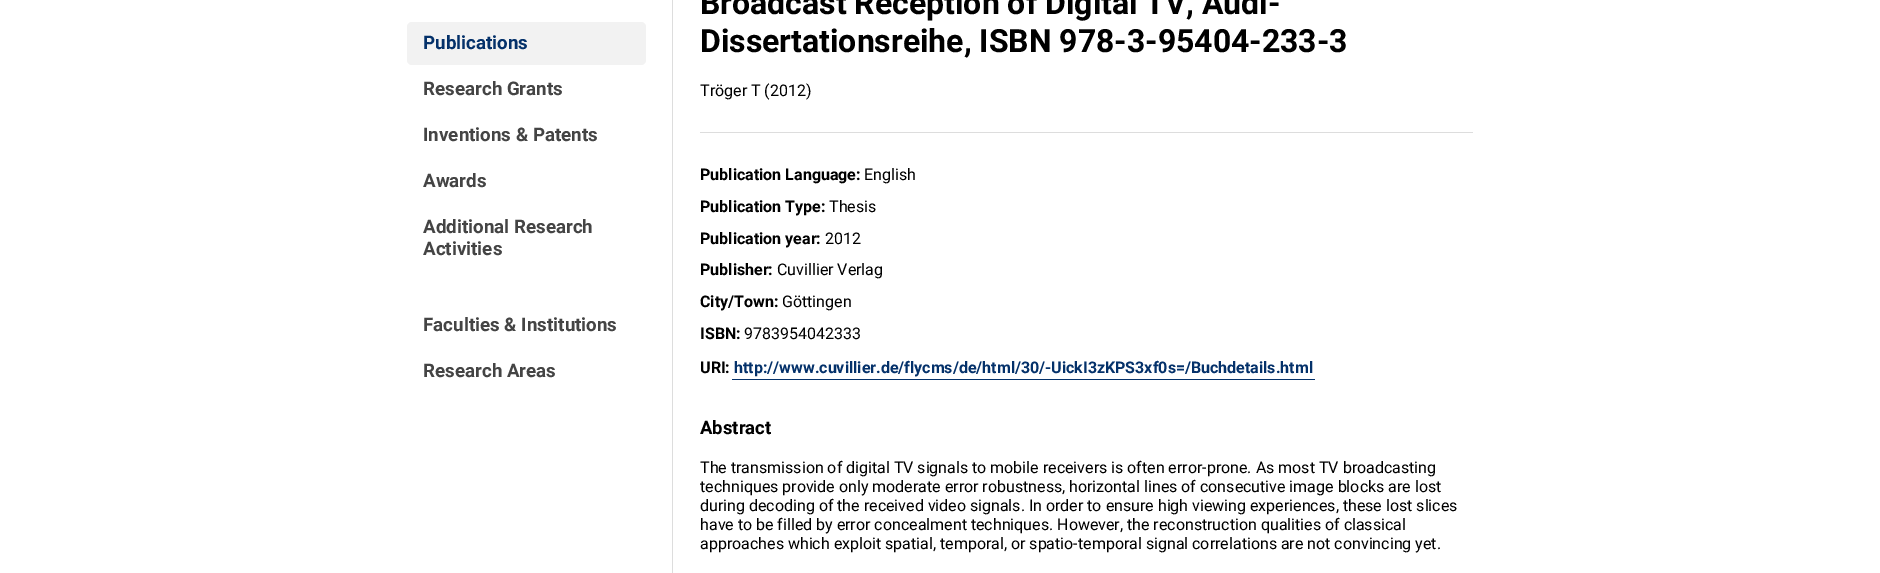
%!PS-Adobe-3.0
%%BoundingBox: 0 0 1880 573
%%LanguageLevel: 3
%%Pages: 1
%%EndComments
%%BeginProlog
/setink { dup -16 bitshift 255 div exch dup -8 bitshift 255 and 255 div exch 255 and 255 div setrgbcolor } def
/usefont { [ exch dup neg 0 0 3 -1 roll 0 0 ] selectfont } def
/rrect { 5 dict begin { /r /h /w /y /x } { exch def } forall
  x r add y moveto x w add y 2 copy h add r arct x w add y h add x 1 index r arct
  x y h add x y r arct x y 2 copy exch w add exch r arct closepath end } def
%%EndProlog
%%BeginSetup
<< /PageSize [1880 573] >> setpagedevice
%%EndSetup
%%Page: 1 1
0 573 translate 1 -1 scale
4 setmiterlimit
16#FFFFFF setink
0 0 1880 573 rectfill
16#DDDDDD setink
672 0 1 573 rectfill
16#F2F2F2 setink
407 22 239 43 5 rrect fill
/Roboto-Bold 18.75 usefont
16#04316A setink
423 49 moveto (Publications) show
16#444444 setink
[
    [(Research Grants) 423 95]
    [(Inventions & Patents) 423 141]
    [(Awards) 423 187]
    [(Additional Research) 423 233]
    [(Activities) 423 255]
    [(Faculties & Institutions) 423 331]
    [(Research Areas) 423 377]
] { aload pop moveto show } forall
/Roboto-Bold 32 usefont
16#000000 setink
700 14 moveto (Broadcast Reception of Digital TV, Audi-) show
700 52 moveto (Dissertationsreihe, ISBN 978-3-95404-233-3) show
/Roboto-Regular 16 usefont
700 96 moveto (Tröger T \(2012\)) show
16#DDDDDD setink
700 132 773 1 rectfill
/Roboto-Bold 16 usefont
16#000000 setink
700 180 moveto (Publication Language:) show
/Roboto-Regular 16 usefont
864 180 moveto (English) show
/Roboto-Bold 16 usefont
700 212 moveto (Publication Type:) show
/Roboto-Regular 16 usefont
829 212 moveto (Thesis) show
/Roboto-Bold 16 usefont
700 244 moveto (Publication year:) show
/Roboto-Regular 16 usefont
825 244 moveto (2012) show
/Roboto-Bold 16 usefont
700 275 moveto (Publisher:) show
/Roboto-Regular 16 usefont
777 275 moveto (Cuvillier Verlag) show
/Roboto-Bold 16 usefont
700 307 moveto (City/Town:) show
/Roboto-Regular 16 usefont
782 307 moveto (Göttingen) show
/Roboto-Bold 16 usefont
700 339 moveto (ISBN:) show
/Roboto-Regular 16 usefont
744 339 moveto (9783954042333) show
/Roboto-Bold 16 usefont
700 373 moveto (URI:) show
16#04316A setink
734 373 moveto (http://www.cuvillier.de/flycms/de/html/30/-UickI3zKPS3xf0s=/Buchdetails.html) show
732 379 583 1 rectfill
/Roboto-Bold 18.5 usefont
16#000000 setink
700 434 moveto (Abstract) show
/Roboto-Regular 16 usefont
[
    [(The transmission of digital TV signals to mobile receivers is often error-prone. As most TV broadcasting) 700 473]
    [(techniques provide only moderate error robustness, horizontal lines of consecutive image blocks are lost) 700 492]
    [(during decoding of the received video signals. In order to ensure high viewing experiences, these lost slices) 700 511]
    [(have to be filled by error concealment techniques. However, the reconstruction qualities of classical) 700 530]
    [(approaches which exploit spatial, temporal, or spatio-temporal signal correlations are not convincing yet.) 700 549]
] { aload pop moveto show } forall
showpage
%%EOF
